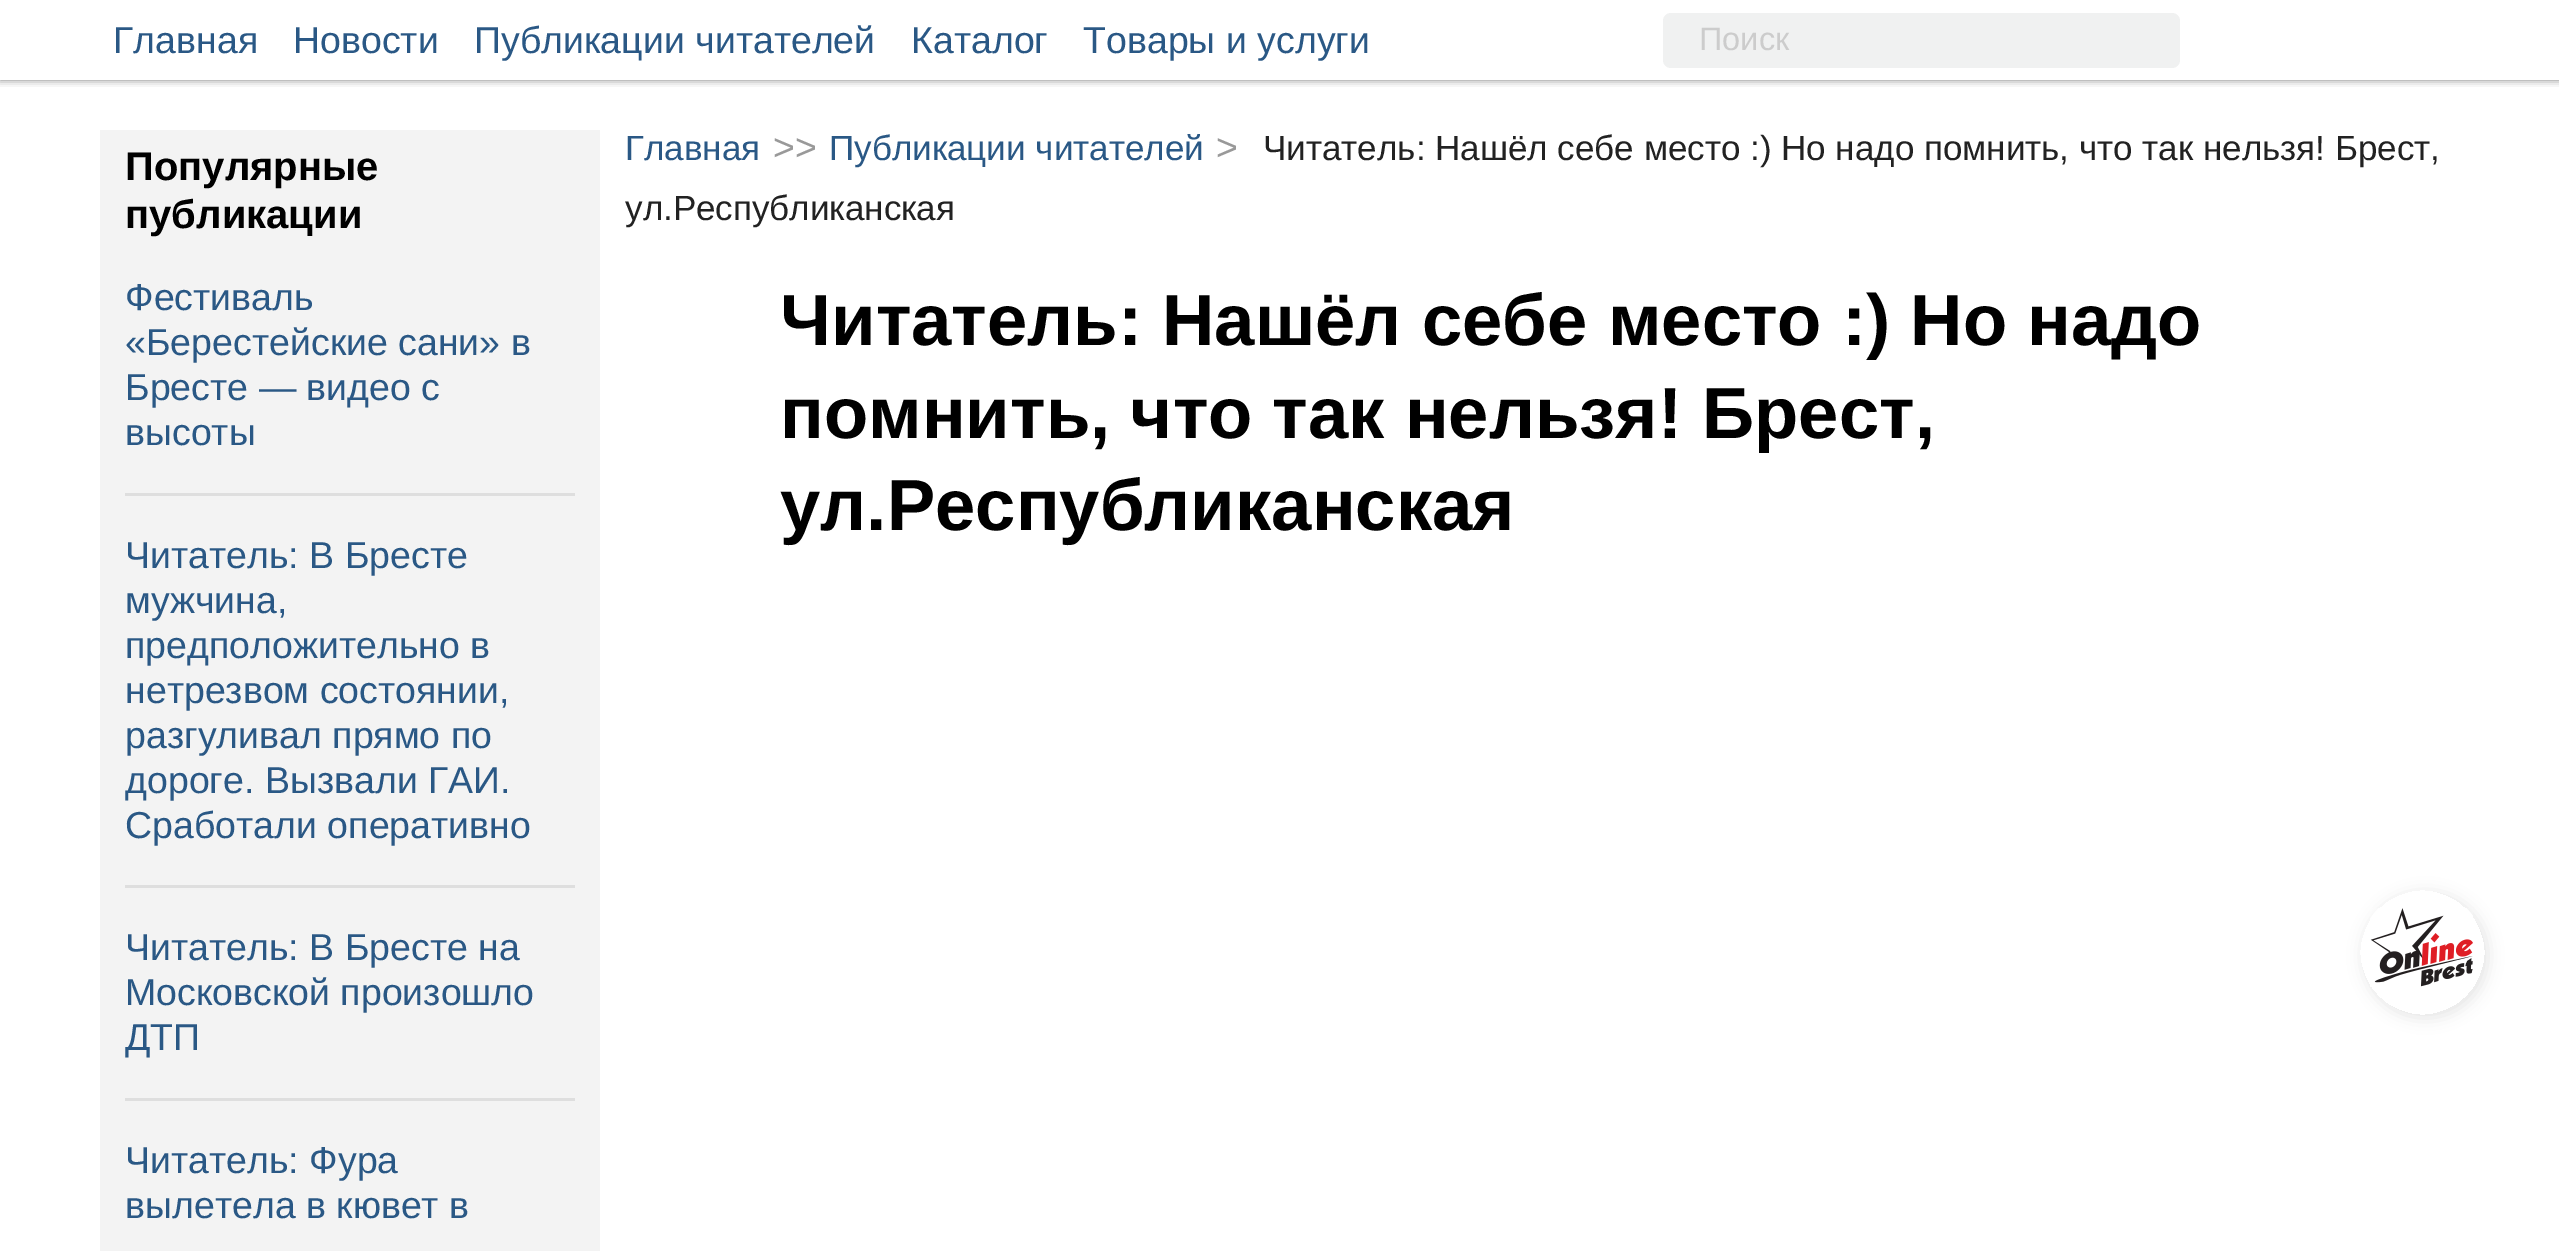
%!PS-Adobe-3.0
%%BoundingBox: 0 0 2559 1251
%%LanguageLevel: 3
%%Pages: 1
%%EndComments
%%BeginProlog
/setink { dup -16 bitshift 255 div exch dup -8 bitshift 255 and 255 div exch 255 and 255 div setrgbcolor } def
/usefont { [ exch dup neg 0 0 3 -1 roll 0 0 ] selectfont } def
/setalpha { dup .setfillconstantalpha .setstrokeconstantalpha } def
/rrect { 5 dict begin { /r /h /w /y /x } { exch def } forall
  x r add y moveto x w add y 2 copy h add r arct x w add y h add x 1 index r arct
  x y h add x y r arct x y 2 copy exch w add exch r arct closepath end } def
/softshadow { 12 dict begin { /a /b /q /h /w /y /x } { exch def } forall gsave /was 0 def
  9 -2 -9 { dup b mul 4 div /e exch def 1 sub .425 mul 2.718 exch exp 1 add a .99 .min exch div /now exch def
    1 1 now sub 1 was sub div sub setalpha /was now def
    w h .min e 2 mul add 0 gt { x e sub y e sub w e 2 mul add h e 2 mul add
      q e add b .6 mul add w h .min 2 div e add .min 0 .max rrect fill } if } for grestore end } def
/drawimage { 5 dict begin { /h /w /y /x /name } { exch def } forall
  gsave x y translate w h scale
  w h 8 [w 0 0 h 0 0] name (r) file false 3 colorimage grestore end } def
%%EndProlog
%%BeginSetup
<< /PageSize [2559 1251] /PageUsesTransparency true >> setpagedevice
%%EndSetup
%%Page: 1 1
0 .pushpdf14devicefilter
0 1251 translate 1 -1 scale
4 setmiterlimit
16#FFFFFF setink
0 0 2559 1251 rectfill
gsave
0 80 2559 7 rectclip
16#000000 setink
0 0 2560 80 0 4 0.5 softshadow
grestore
/LiberationSans-Regular 37.5 usefont
16#2A5885 setink
[
    [(Главная) 113 53]
    [(Новости) 293 53]
    [(Публикации читателей) 474 53]
    [(Каталог) 911 53]
    [(Товары и услуги) 1083 53]
] { aload pop moveto show } forall
16#F0F1F1 setink
1663 13 517 55 8 rrect fill
/LiberationSans-Regular 32.5 usefont
16#CCCCCC setink
1699 50 moveto (Поиск) show
16#F3F3F3 setink
100 130 500 1121 rectfill
/LiberationSans-Bold 40 usefont
16#000000 setink
125 180 moveto (Популярные) show
125 228 moveto (публикации) show
16#DEDEDE setink
125 493 450 3 rectfill
/LiberationSans-Regular 37.5 usefont
16#2A5885 setink
[
    [(Фестиваль) 125 310]
    [(«Берестейские сани» в) 125 355]
    [(Бресте — видео с) 125 400]
    [(высоты) 125 445]
] { aload pop moveto show } forall
16#DEDEDE setink
125 885 450 3 rectfill
16#2A5885 setink
[
    [(Читатель: В Бресте) 125 568]
    [(мужчина,) 125 613]
    [(предположительно в) 125 658]
    [(нетрезвом состоянии,) 125 703]
    [(разгуливал прямо по) 125 748]
    [(дороге. Вызвали ГАИ.) 125 793]
    [(Сработали оперативно) 125 838]
] { aload pop moveto show } forall
16#DEDEDE setink
125 1098 450 3 rectfill
16#2A5885 setink
[
    [(Читатель: В Бресте на) 125 960]
    [(Московской произошло) 125 1005]
    [(ДТП) 125 1050]
    [(Читатель: Фура) 125 1173]
    [(вылетела в кювет в) 125 1218]
] { aload pop moveto show } forall
/LiberationSans-Regular 35 usefont
625 160 moveto (Главная) show
/LiberationSans-Regular 37.5 usefont
16#999999 setink
773 160 moveto (>>) show
/LiberationSans-Regular 35 usefont
16#2A5885 setink
829 160 moveto (Публикации читателей) show
/LiberationSans-Regular 37.5 usefont
16#999999 setink
1216 160 moveto (>) show
/LiberationSans-Regular 35 usefont
16#222222 setink
1263 160 moveto (Читатель: Нашёл себе место :\) Но надо помнить, что так нельзя! Брест,) show
625 220 moveto (ул.Республиканская) show
/LiberationSans-Bold 72.5 usefont
16#000000 setink
[
    [(Читатель: Нашёл себе место :\) Но надо) 780 345]
    [(помнить, что так нельзя! Брест,) 780 438]
    [(ул.Республиканская) 780 530]
] { aload pop moveto show } forall
gsave
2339 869 moveto 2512 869 lineto 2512 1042 lineto 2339 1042 lineto closepath 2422.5 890 moveto 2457 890 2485 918 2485 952.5 curveto 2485 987 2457 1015 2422.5 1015 curveto 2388 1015 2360 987 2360 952.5 curveto 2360 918 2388 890 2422.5 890 curveto closepath eoclip newpath
2363 893 125 125 62.5 7.5 0.1 softshadow
grestore
(img1.raw) 2370 908 103 79 drawimage
.poppdf14devicefilter showpage
%%EOF
